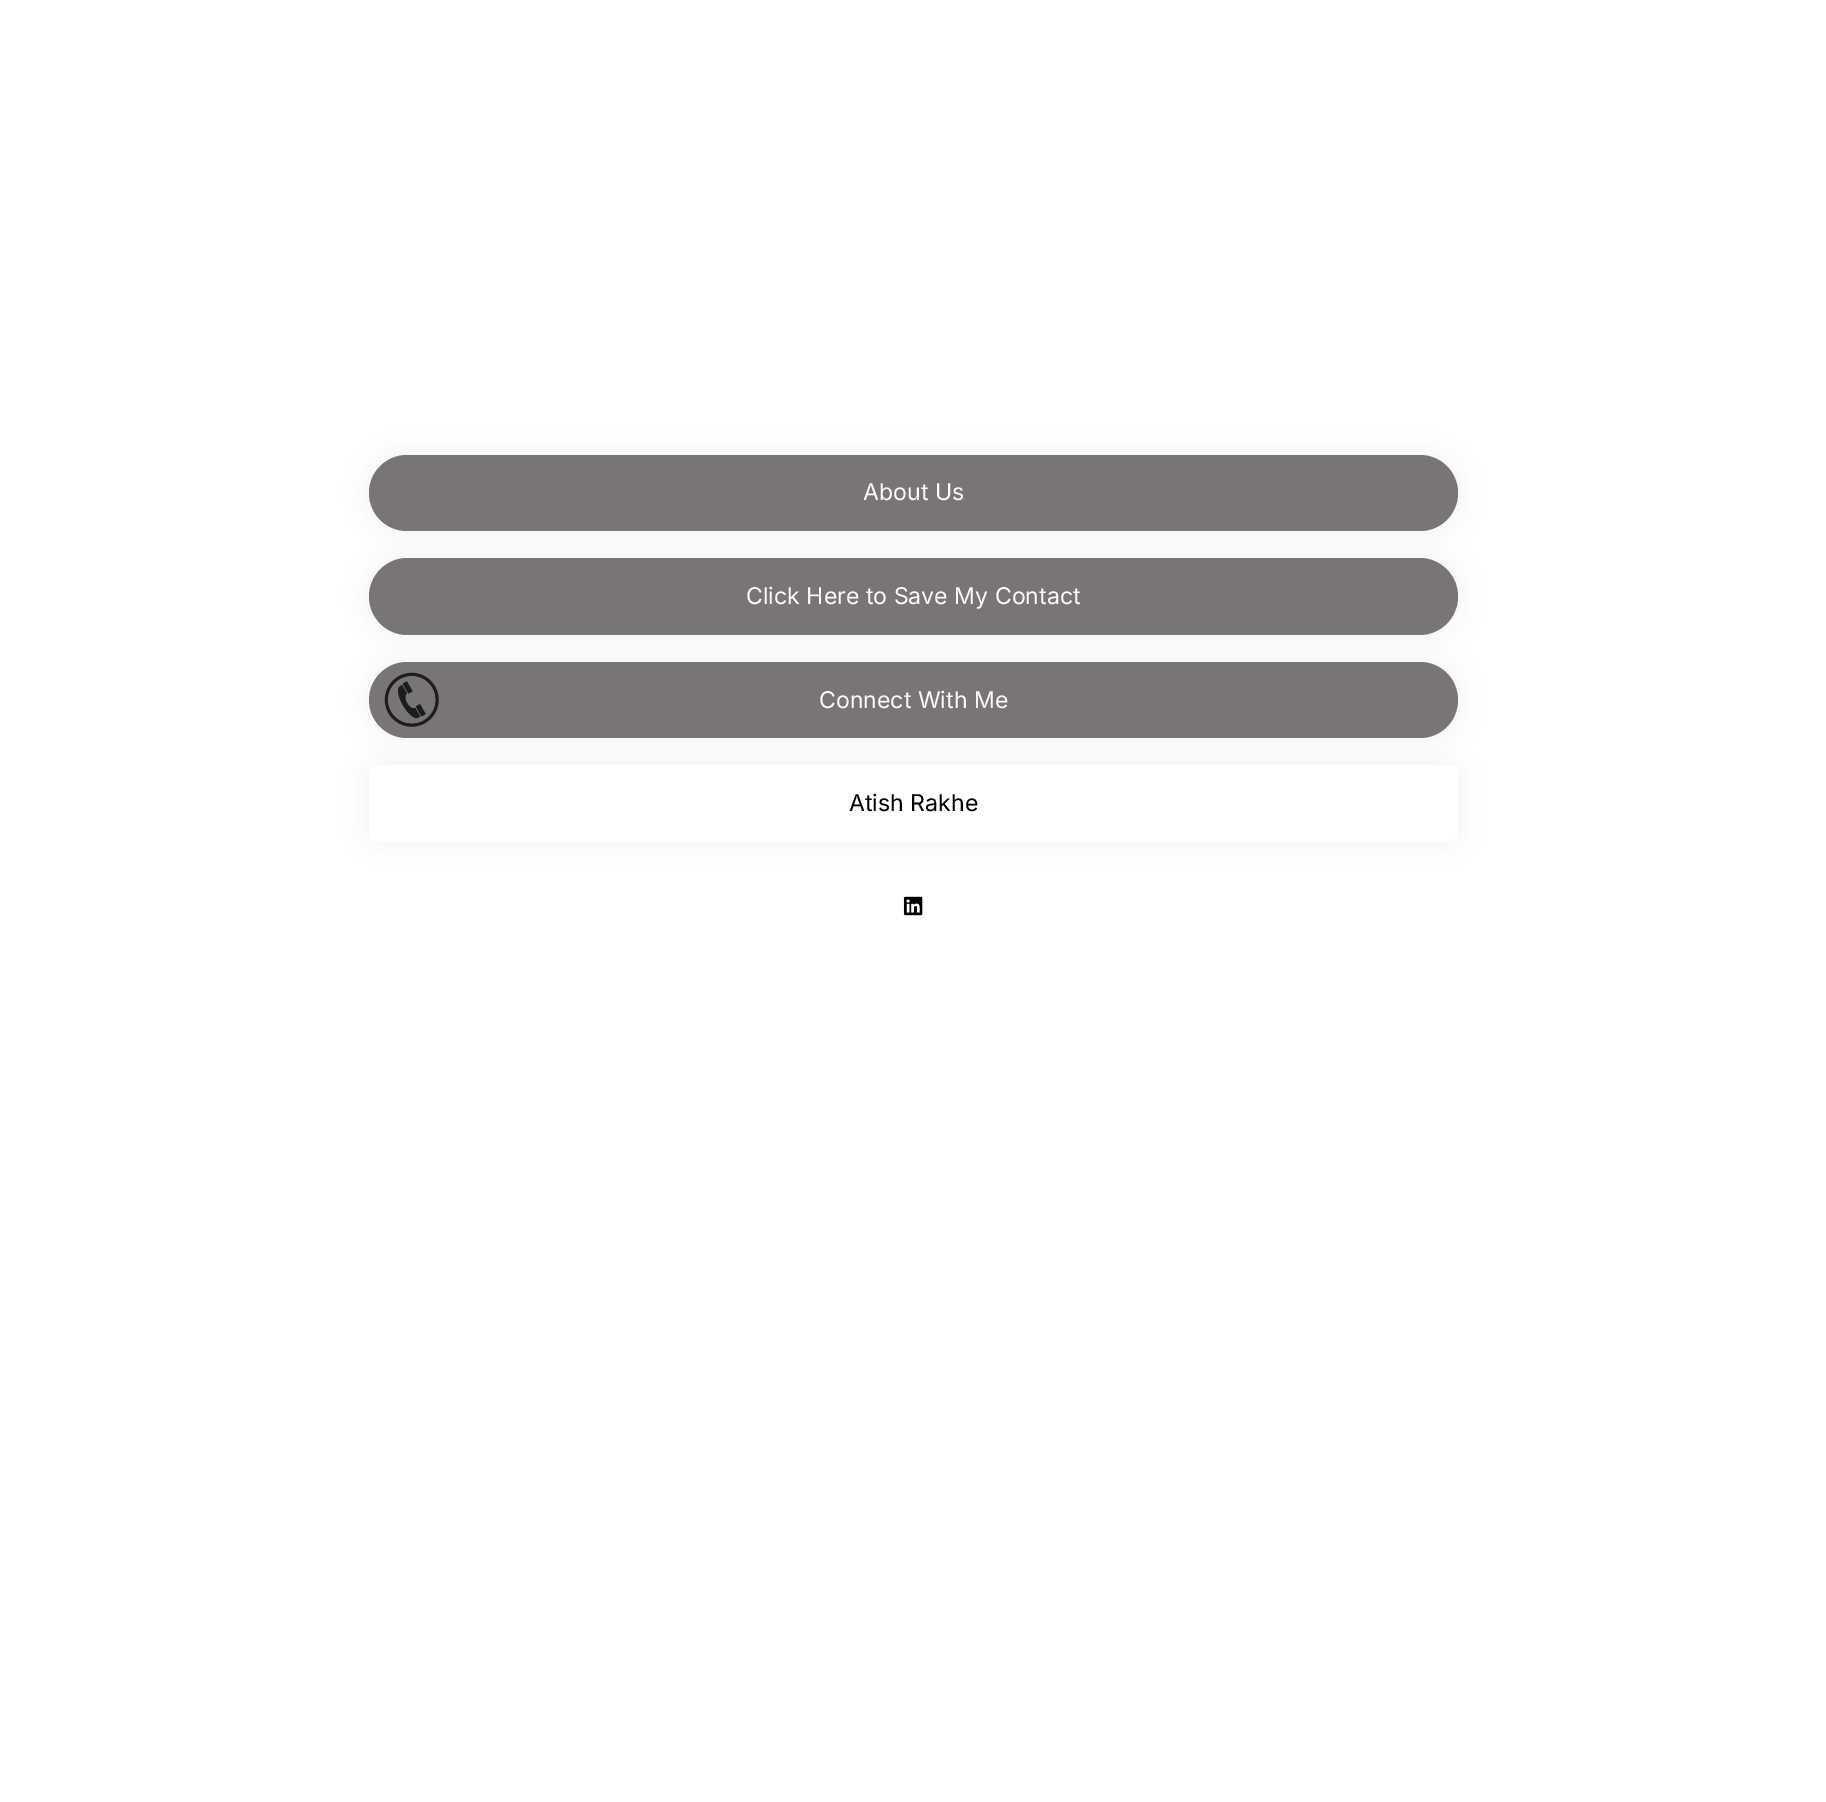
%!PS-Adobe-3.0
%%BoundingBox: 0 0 1826 1802
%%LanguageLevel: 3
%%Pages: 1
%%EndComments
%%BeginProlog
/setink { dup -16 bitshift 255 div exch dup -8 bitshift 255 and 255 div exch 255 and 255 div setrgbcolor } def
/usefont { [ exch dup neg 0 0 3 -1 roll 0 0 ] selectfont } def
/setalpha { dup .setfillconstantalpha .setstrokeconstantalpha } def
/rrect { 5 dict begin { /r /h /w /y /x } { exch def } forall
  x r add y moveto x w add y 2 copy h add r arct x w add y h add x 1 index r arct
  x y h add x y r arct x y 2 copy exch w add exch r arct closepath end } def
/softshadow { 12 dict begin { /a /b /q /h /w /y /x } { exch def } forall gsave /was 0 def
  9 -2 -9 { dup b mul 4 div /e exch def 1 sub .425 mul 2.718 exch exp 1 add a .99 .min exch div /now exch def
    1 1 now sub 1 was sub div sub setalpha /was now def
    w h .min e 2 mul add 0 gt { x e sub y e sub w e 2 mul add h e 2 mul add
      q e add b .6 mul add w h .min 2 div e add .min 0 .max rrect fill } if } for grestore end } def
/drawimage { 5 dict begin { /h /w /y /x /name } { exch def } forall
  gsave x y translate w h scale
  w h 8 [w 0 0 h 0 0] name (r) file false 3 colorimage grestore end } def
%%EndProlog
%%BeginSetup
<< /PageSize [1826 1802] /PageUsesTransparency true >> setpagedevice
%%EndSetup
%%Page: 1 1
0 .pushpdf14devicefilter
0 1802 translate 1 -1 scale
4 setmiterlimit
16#FFFFFF setink
0 0 1826 1802 rectfill
16#000000 setink
369 455 1089 76 38 15 0.06 softshadow
16#7A7575 setink
369 455 1089 76 38 rrect fill
/Inter-Regular 23.1 usefont
16#FAFAFA setink
863 500 moveto (About Us) show
16#000000 setink
369 558 1089 77 38.5 15 0.06 softshadow
16#7A7575 setink
369 558 1089 77 38.5 rrect fill
16#FAFAFA setink
746 604 moveto (Click Here to Save My Contact) show
16#000000 setink
369 662 1089 76 38 15 0.06 softshadow
16#7A7575 setink
369 662 1089 76 38 rrect fill
(img1.raw) 384 672 55 55 drawimage
16#FAFAFA setink
819 708 moveto (Connect With Me) show
16#000000 setink
369 765 1089 77 9 15 0.06 softshadow
16#FFFFFF setink
369 765 1089 77 9 rrect fill
16#000000 setink
849 811 moveto (Atish Rakhe) show
(img2.raw) 903 896 20 20 drawimage
.poppdf14devicefilter showpage
%%EOF
